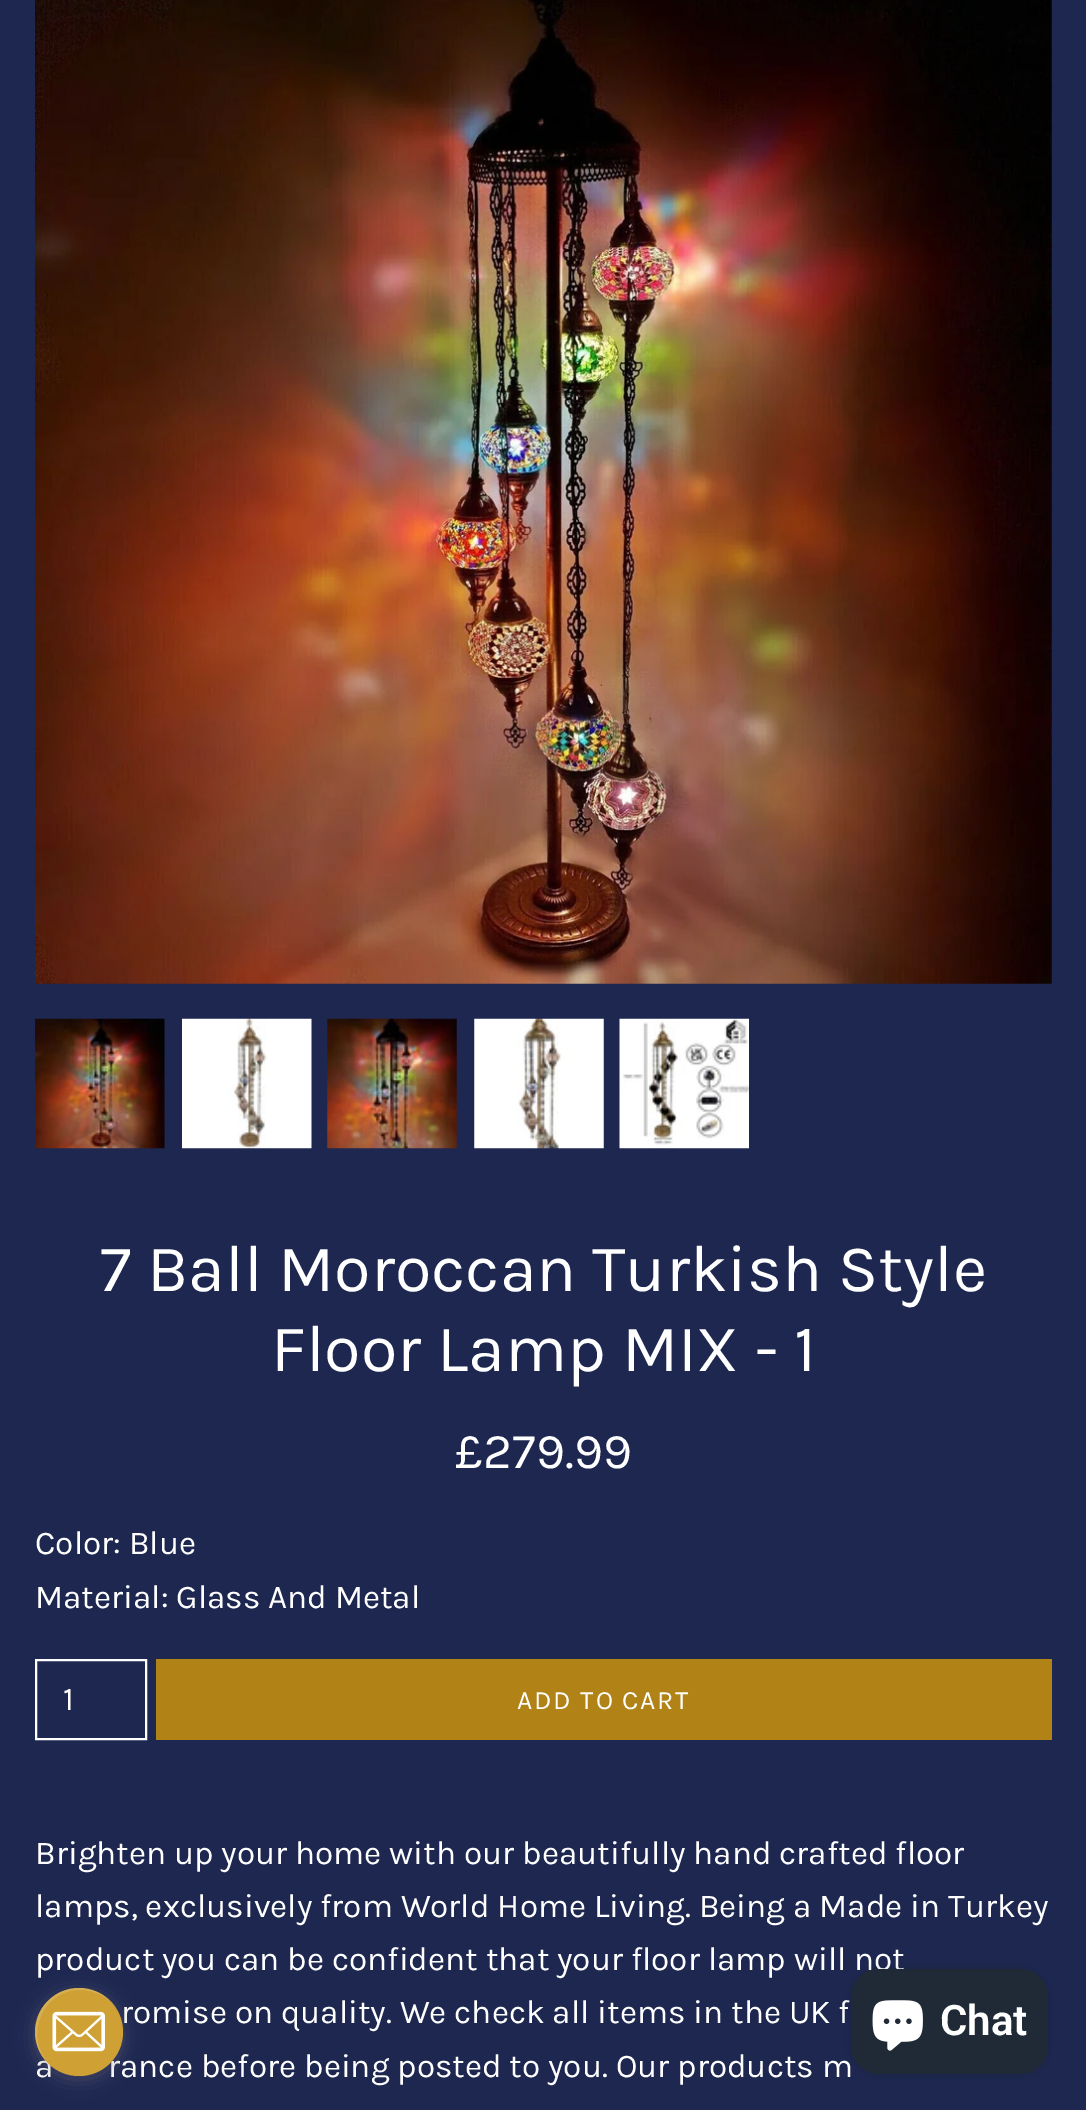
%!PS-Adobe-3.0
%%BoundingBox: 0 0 1086 2110
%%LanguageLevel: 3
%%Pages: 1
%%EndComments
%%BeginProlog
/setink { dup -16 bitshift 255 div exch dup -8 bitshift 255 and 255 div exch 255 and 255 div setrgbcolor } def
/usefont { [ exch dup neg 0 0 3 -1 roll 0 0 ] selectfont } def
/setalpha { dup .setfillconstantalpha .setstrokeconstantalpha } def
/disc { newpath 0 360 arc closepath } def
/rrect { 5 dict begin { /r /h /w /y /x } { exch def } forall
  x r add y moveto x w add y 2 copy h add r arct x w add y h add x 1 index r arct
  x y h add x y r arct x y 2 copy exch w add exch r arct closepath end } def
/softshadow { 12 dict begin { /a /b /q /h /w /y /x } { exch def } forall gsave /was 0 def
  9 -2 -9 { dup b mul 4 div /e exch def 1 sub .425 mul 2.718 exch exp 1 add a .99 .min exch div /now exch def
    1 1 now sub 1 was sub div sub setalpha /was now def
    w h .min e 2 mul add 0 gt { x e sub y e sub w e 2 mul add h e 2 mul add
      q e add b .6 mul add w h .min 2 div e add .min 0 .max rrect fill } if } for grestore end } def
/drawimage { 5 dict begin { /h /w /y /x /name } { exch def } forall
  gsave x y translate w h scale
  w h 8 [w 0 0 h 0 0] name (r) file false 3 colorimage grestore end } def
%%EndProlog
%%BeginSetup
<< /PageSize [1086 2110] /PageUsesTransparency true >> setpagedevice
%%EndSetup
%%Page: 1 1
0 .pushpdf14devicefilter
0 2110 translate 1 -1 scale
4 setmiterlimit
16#1D2750 setink
0 0 1086 2110 rectfill
(img1.raw) 35 0 1017 984 drawimage
(img2.raw) 35 1018 130 131 drawimage
(img3.raw) 182 1018 130 131 drawimage
(img4.raw) 327 1018 130 131 drawimage
(img5.raw) 474 1018 130 131 drawimage
(img6.raw) 619 1018 130 131 drawimage
/Karla-Regular 66.5 usefont
16#FFFFFF setink
100 1291 moveto (7 Ball Moroccan Turkish Style) show
271 1371 moveto (Floor Lamp MIX - 1) show
/Karla-Regular 50 usefont
455 1468 moveto (£279.99) show
/Karla-Regular 33.25 usefont
35 1554 moveto (Color: Blue) show
35 1608 moveto (Material: Glass And Metal) show
2 setlinewidth
36 1660 110 79 rectstroke
63 1710 moveto (1) show
16#B18317 setink
156 1659 896 81 rectfill
/Karla-Regular 26.5 usefont
16#FFFFFF setink
517 1709 moveto 1.75 0 (ADD TO CART) ashow
/Karla-Regular 33.25 usefont
[
    [(Brighten up your home with our beautifully hand crafted floor) 35 1864]
    [(lamps, exclusively from World Home Living. Being a Made in Turkey) 35 1917]
    [(product you can be confident that your floor lamp will not) 35 1970]
    [(romise on quality. We check all items in the UK f) 121 2023]
    [(a) 35 2077]
    [(rance before being posted to you. Our products m) 108 2077]
] { aload pop moveto show } forall
16#808080 setink
35 1992 88 87 43.5 9.5 0.4 softshadow
16#CFA135 setink
79 2032 44 disc fill
0.15 setalpha
16#FFFFFF setink
80 1990 moveto 95 1990 108 1997 116 2007 curveto 100 1985 68 1981 48 2001 curveto 30 2019 31 2050 51 2066 curveto 23 2040 40 1990 80 1990 curveto closepath fill
1 setalpha
(img7.raw) 52 2011 53 41 drawimage
16#000000 setink
851 1969 197 105 28 4.5 0.15 softshadow
16#202A36 setink
851 1969 197 105 28 rrect fill
(img8.raw) 872 2000 51 51 drawimage
/Roboto-SemiBold 42 usefont
16#FFFFFF setink
940 2035 moveto (Chat) show
.poppdf14devicefilter showpage
%%EOF
